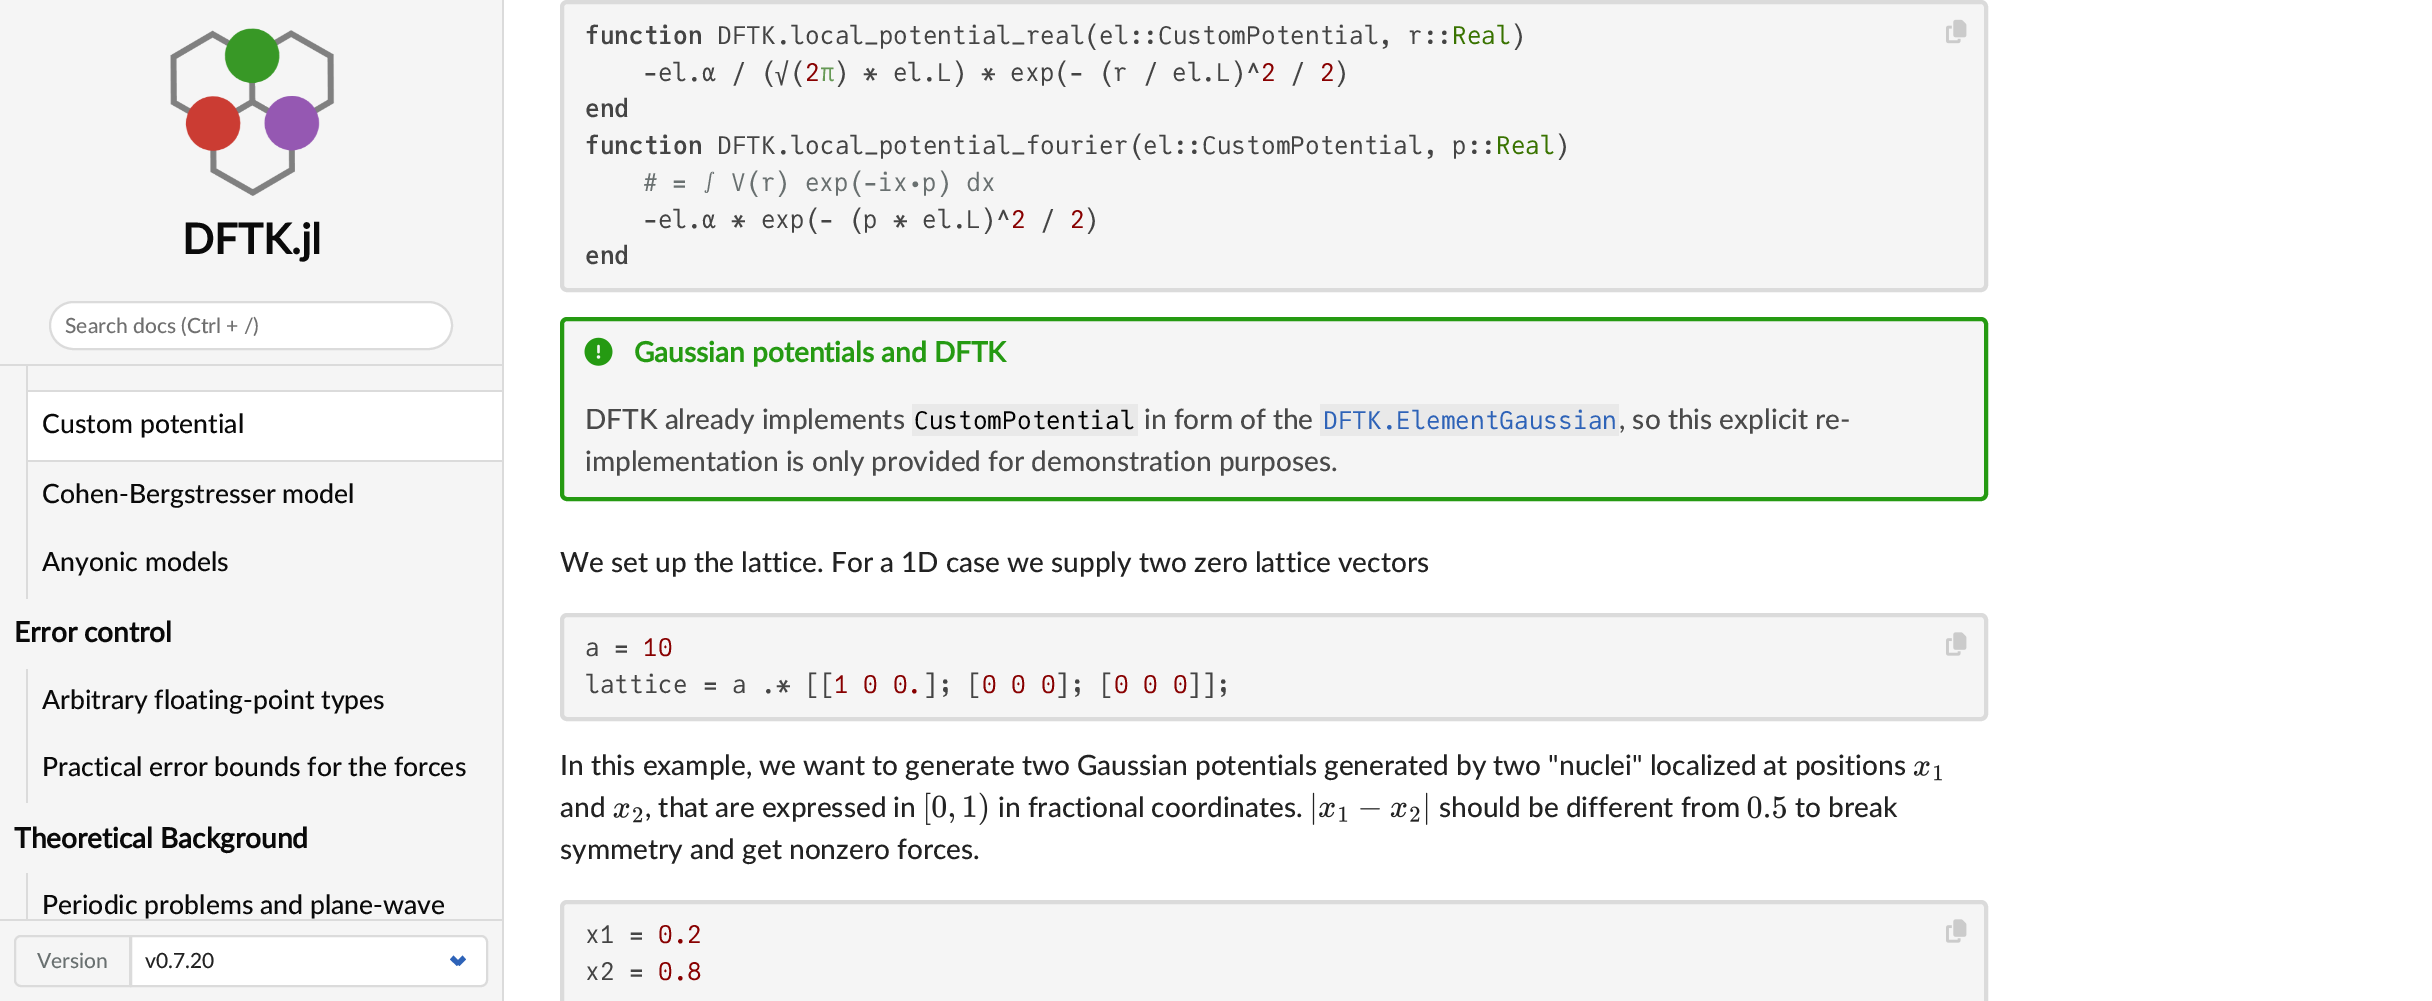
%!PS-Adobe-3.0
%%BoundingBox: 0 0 2432 1001
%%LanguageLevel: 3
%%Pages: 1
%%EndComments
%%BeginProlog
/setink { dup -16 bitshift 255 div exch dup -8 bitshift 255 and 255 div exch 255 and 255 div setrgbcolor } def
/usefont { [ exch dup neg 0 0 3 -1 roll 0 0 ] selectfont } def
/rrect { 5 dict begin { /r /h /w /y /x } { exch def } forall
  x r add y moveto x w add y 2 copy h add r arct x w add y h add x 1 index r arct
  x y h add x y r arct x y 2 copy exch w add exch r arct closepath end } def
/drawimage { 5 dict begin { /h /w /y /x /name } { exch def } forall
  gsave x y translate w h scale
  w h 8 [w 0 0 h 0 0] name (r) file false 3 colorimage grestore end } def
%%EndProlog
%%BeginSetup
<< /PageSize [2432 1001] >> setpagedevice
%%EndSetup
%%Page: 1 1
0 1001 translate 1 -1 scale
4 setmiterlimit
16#FFFFFF setink
0 0 2432 1001 rectfill
16#F5F5F5 setink
0 0 502 1001 rectfill
16#DBDBDB setink
502 0 2 1001 rectfill
(img1.raw) 170 28 165 168 drawimage
/Lato-Bold 42 usefont
16#0A0A0A setink
182 254 moveto (DFTK.jl) show
16#FFFFFF setink
50 302 402 47 23.5 rrect gsave fill grestore
16#DBDBDB setink
2 setlinewidth
stroke
/Lato-Medium 21 usefont
16#707070 setink
65 333 moveto (Search docs \(Ctrl + /\)) show
[
    [0 364 502 2 16#DBDBDB]
    [26 366 2 24 16#DBDBDB]
    [28 392 474 68 16#FFFFFF]
    [26 390 476 2 16#DBDBDB]
    [26 460 476 2 16#DBDBDB]
    [26 390 2 209 16#DBDBDB]
] { aload pop setink rectfill } forall
/Lato-Medium 26.6 usefont
16#0A0A0A setink
[
    [(Custom potential) 42 433]
    [(Cohen-Bergstresser model) 42 503]
    [(Anyonic models) 42 571]
] { aload pop moveto show } forall
/Lato-Bold 28 usefont
14 642 moveto (Error control) show
16#DBDBDB setink
26 669 2 134 rectfill
/Lato-Medium 26.6 usefont
16#0A0A0A setink
42 709 moveto (Arbitrary floating-point types) show
42 776 moveto (Practical error bounds for the forces) show
/Lato-Bold 28 usefont
14 848 moveto (Theoretical Background) show
16#DBDBDB setink
26 873 2 46 rectfill
/Lato-Medium 26.6 usefont
16#0A0A0A setink
42 914 moveto (Periodic problems and plane-wave) show
16#DBDBDB setink
0 919 502 2 rectfill
21 936 moveto 130 936 lineto 130 986 lineto 21 986 lineto 17.5 986 15 983.5 15 980 curveto 15 942 lineto 15 938.5 17.5 936 21 936 curveto closepath stroke
/Lato-Medium 21 usefont
16#697070 setink
37 968 moveto (Version) show
16#FFFFFF setink
131 936 moveto 481 936 lineto 484.5 936 487 938.5 487 942 curveto 487 980 lineto 487 983.5 484.5 986 481 986 curveto 131 986 lineto closepath gsave fill grestore
16#DBDBDB setink
stroke
16#222222 setink
145 968 moveto (v0.7.20) show
16#2E63B8 setink
455.5 962.5 moveto 462.5 955.5 lineto 466 959.5 lineto 459.5 966 lineto closepath fill
450 959.5 moveto 453.5 955.5 lineto 460.5 962.5 lineto 457 966 lineto closepath fill
16#F5F5F5 setink
562 2 1424 288 5 rrect gsave fill grestore
16#DBDBDB setink
4 setlinewidth
stroke
/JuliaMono-Bold 24.5 usefont
16#444444 setink
585 44 moveto (function) show
/JuliaMono-Regular 24.5 usefont
717 44 moveto (DFTK.local_potential_real\(el::CustomPotential, r::) show
16#397300 setink
1452 44 moveto (Real) show
16#444444 setink
1511 44 moveto (\)) show
643 81 moveto (-el.α / \(√\() show
16#880000 setink
805 81 moveto (2) show
16#669955 setink
820 81 moveto (π) show
16#444444 setink
834 81 moveto (\) * el.L\) * exp\(- \(r / el.L\)^) show
16#880000 setink
1261 81 moveto (2) show
16#444444 setink
1290 81 moveto (/) show
16#880000 setink
1320 81 moveto (2) show
16#444444 setink
1334 81 moveto (\)) show
/JuliaMono-Bold 24.5 usefont
585 117 moveto (end) show
585 154 moveto (function) show
/JuliaMono-Regular 24.5 usefont
717 154 moveto (DFTK.local_potential_fourier\(el::CustomPotential, p::) show
16#397300 setink
1496 154 moveto (Real) show
16#444444 setink
1555 154 moveto (\)) show
16#697070 setink
643 191 moveto (# = ∫ V\(r\) exp\(-ix⋅p\) dx) show
16#444444 setink
643 228 moveto (-el.α * exp\(- \(p * el.L\)^) show
16#880000 setink
1011 228 moveto (2) show
16#444444 setink
1040 228 moveto (/) show
16#880000 setink
1070 228 moveto (2) show
16#444444 setink
1084 228 moveto (\)) show
/JuliaMono-Bold 24.5 usefont
585 264 moveto (end) show
(img2.raw) 1946 19 21 25 drawimage
16#F5F5F5 setink
562 319 1424 180 5 rrect gsave fill grestore
16#259A12 setink
stroke
(img3.raw) 584 337 29 29 drawimage
/Lato-Bold 28 usefont
634 362 moveto (Gaussian potentials and DFTK) show
/Lato-Medium 28 usefont
16#4A4A4A setink
585 429 moveto (DFTK already implements) show
16#E9E9E9 setink
912 404 226 32 rectfill
/JuliaMono-Regular 24.5 usefont
16#000000 setink
914 429 moveto (CustomPotential) show
/Lato-Medium 28 usefont
16#4A4A4A setink
1144 429 moveto (in form of the) show
16#E9E9E9 setink
1320 404 299 32 rectfill
/JuliaMono-Regular 24.5 usefont
16#2E63B8 setink
1323 429 moveto (DFTK.ElementGaussian) show
/Lato-Medium 28 usefont
16#4A4A4A setink
1619 429 moveto (, so this explicit re-) show
585 471 moveto (implementation is only provided for demonstration purposes.) show
16#222222 setink
560 572 moveto (We set up the lattice. For a 1D case we supply two zero lattice vectors) show
16#F5F5F5 setink
562 615 1424 104 5 rrect gsave fill grestore
16#DBDBDB setink
stroke
/JuliaMono-Regular 24.5 usefont
16#444444 setink
585 656 moveto (a =) show
16#880000 setink
643 656 moveto (10) show
16#444444 setink
585 693 moveto (lattice = a .* [[) show
16#880000 setink
834 693 moveto (1 0 0.) show
16#444444 setink
923 693 moveto (]; [) show
16#880000 setink
982 693 moveto (0 0 0) show
16#444444 setink
1055 693 moveto (]; [) show
16#880000 setink
1114 693 moveto (0 0 0) show
16#444444 setink
1187 693 moveto (]];) show
(img4.raw) 1946 632 21 24 drawimage
/Lato-Medium 28 usefont
16#222222 setink
560 775 moveto (In this example, we want to generate two Gaussian potentials generated by two "nuclei" localized at positions) show
(img5.raw) 1913 761 29 20 drawimage
560 817 moveto (and) show
(img6.raw) 613 803 30 20 drawimage
645 817 moveto (, that are expressed in) show
(img7.raw) 926 792 62 33 drawimage
998 817 moveto (in fractional coordinates.) show
(img8.raw) 1312 792 116 33 drawimage
1439 817 moveto (should be different from) show
(img9.raw) 1747 796 39 23 drawimage
1795 817 moveto (to break) show
560 859 moveto (symmetry and get nonzero forces.) show
16#F5F5F5 setink
562 902 1424 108 5 rrect gsave fill grestore
16#DBDBDB setink
stroke
/JuliaMono-Regular 24.5 usefont
16#444444 setink
585 943 moveto (x1 =) show
16#880000 setink
658 943 moveto (0.2) show
16#444444 setink
585 980 moveto (x2 =) show
16#880000 setink
658 980 moveto (0.8) show
(img4.raw) 1946 919 21 24 drawimage
showpage
%%EOF
